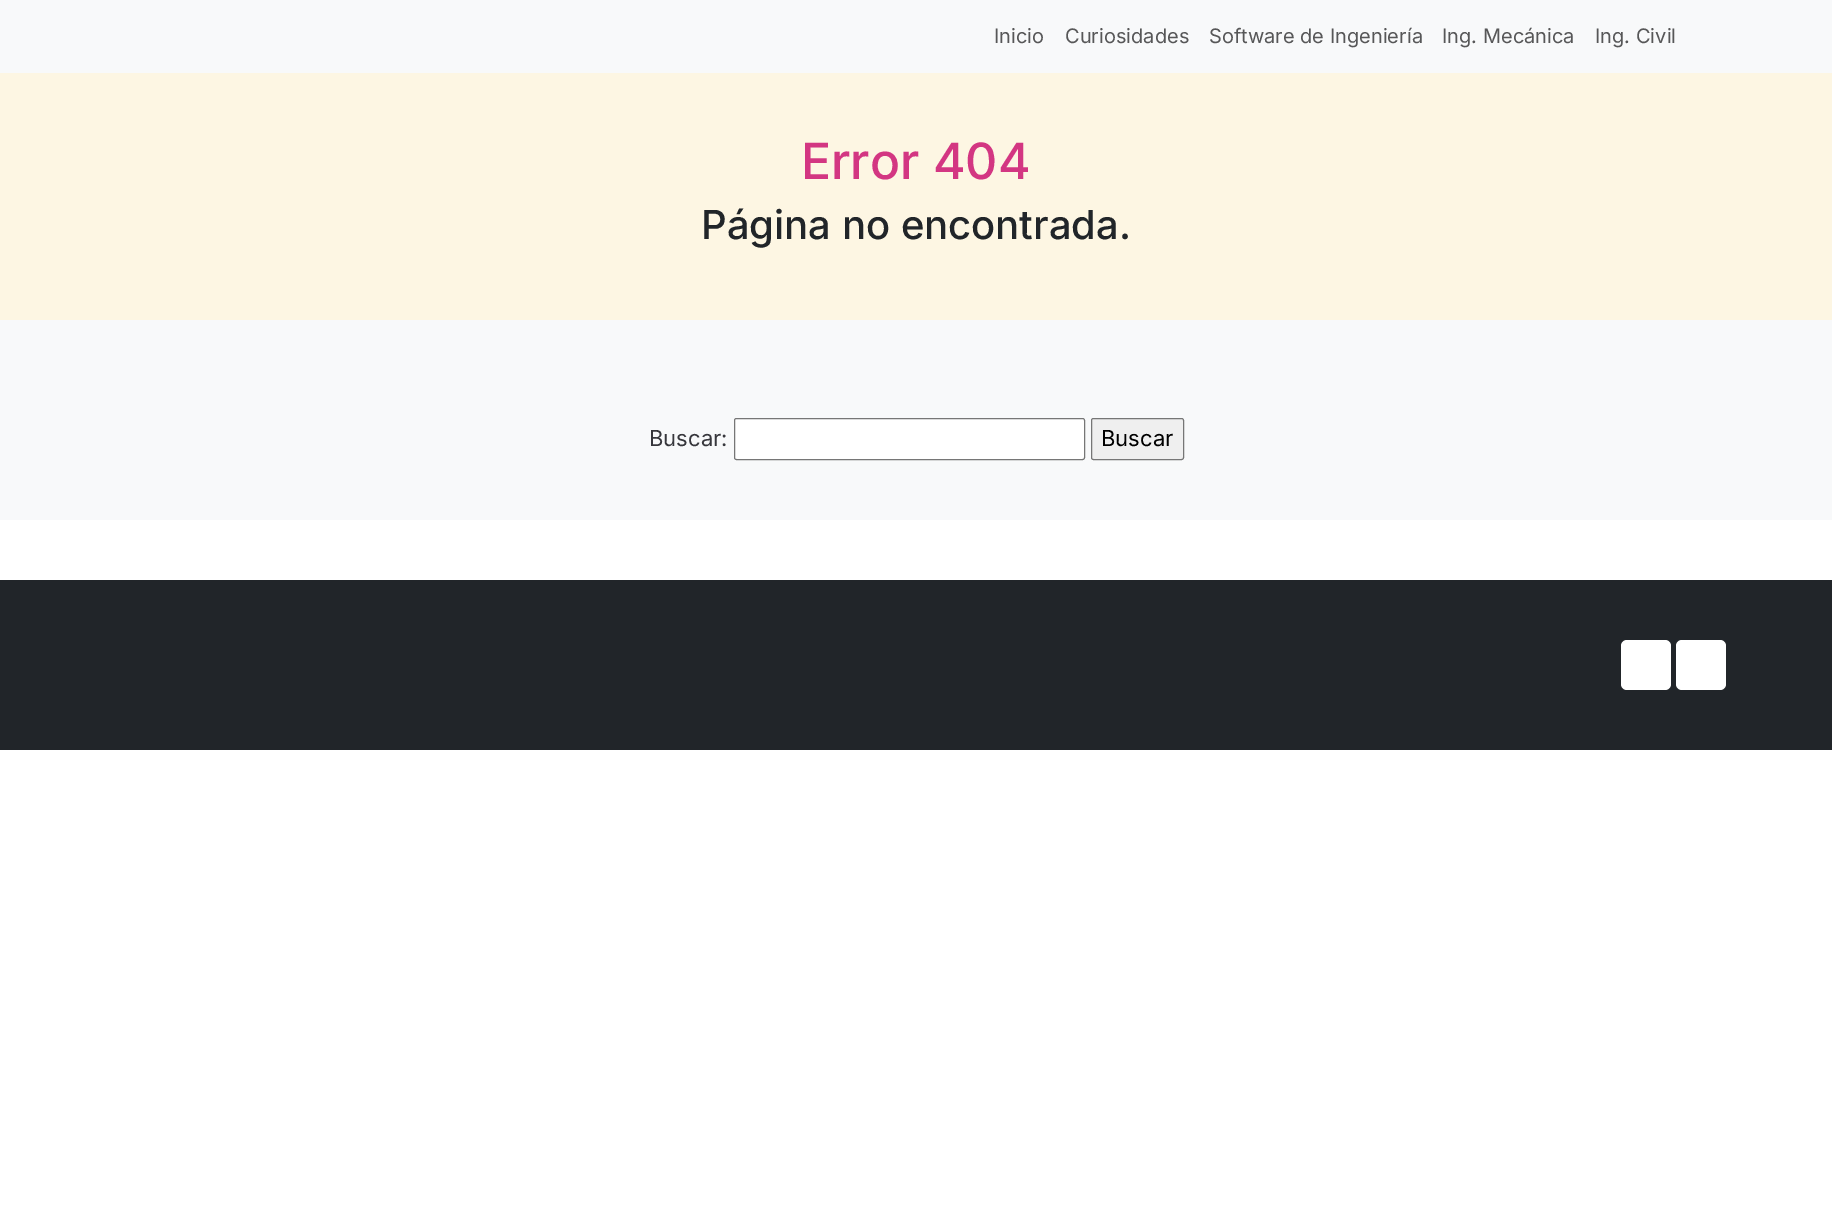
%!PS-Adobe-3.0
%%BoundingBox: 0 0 1832 1225
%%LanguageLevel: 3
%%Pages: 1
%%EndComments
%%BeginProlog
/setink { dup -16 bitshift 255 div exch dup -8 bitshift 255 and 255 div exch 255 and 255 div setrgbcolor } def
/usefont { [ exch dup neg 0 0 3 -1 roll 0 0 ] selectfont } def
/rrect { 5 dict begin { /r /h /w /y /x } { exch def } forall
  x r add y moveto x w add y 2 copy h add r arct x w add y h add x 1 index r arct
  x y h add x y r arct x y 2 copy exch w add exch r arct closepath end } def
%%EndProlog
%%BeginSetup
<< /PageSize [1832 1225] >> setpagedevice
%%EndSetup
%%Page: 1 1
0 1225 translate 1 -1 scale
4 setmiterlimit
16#FFFFFF setink
0 0 1832 1225 rectfill
16#F8F9FA setink
0 0 1832 73 rectfill
/Inter-Regular 20 usefont
16#575758 setink
[
    [(Inicio) 994 43]
    [(Curiosidades) 1065 43]
    [(Software de Ingeniería) 1209 43]
    [(Ing. Mecánica) 1442 43]
    [(Ing. Civil) 1595 43]
] { aload pop moveto show } forall
16#FDF6E3 setink
0 73 1832 247 rectfill
/Inter-Medium 50 usefont
16#D33682 setink
801 179 moveto (Error 404) show
/Inter-Medium 40 usefont
16#212529 setink
701 239 moveto (Página no encontrada.) show
16#F8F9FA setink
0 320 1832 200 rectfill
/Inter-Regular 22 usefont
16#37373C setink
649 446 moveto (Buscar:) show
16#FFFFFF setink
734.5 418.5 350 41 2 rrect gsave fill grestore
16#767676 setink
stroke
16#EFEFEF setink
1091.5 418.5 92 41 2 rrect gsave fill grestore
16#767676 setink
stroke
16#000000 setink
1101 446 moveto (Buscar) show
16#212529 setink
0 580 1832 170 rectfill
16#FFFFFF setink
1621 640 50 50 6 rrect fill
1676 640 50 50 6 rrect fill
showpage
%%EOF
